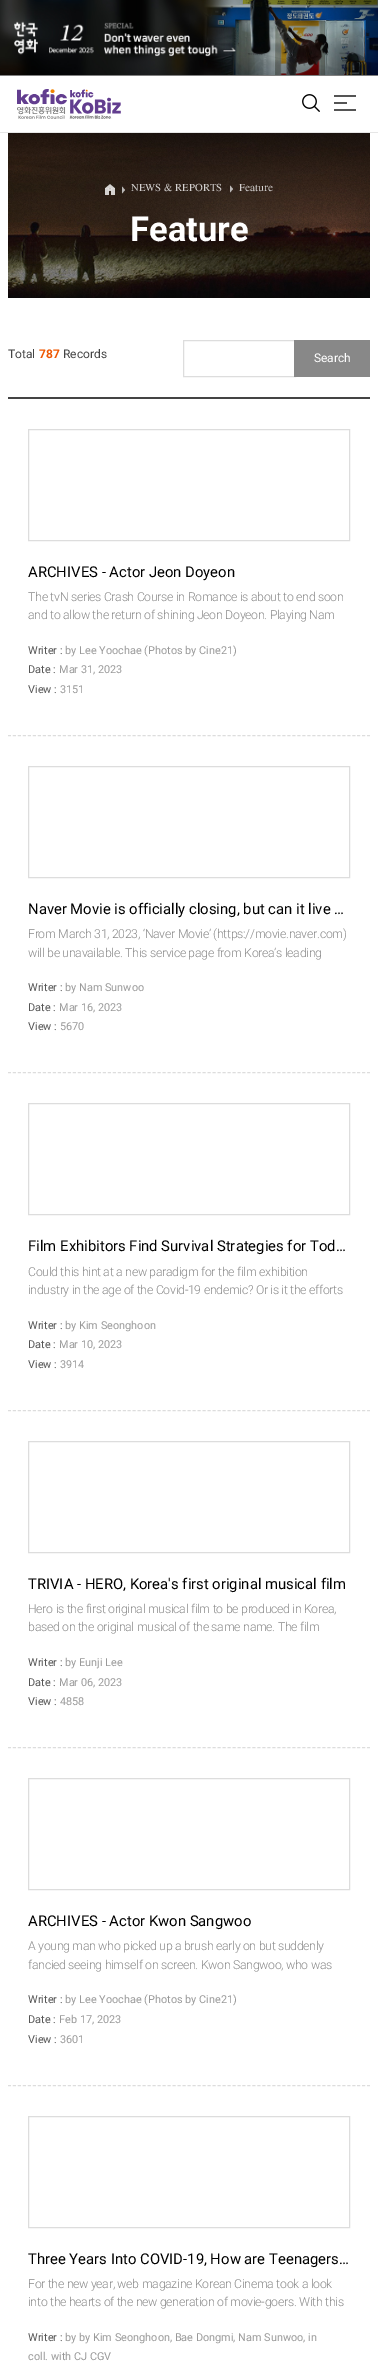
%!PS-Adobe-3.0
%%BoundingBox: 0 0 378 2365
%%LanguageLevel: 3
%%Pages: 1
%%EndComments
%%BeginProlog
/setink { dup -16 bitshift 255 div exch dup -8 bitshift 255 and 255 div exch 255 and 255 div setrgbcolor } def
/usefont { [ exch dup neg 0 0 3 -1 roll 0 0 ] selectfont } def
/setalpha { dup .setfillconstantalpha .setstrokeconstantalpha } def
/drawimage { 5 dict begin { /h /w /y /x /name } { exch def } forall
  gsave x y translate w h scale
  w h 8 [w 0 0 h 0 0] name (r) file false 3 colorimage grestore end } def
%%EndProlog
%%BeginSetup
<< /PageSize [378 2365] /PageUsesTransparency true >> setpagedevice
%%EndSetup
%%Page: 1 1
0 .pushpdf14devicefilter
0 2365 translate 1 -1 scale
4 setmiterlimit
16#FFFFFF setink
0 0 378 2365 rectfill
(img1.raw) 0 0 378 75 drawimage
16#7F7F7F setink
0 75 378 1 rectfill
(img2.raw) 17 89 50 30 drawimage
(img3.raw) 69 89 52 30 drawimage
(img4.raw) 302 94 18 18 drawimage
[
    [334 95 22 2 16#555555]
    [334 102 13 2 16#555555]
    [334 109 22 2 16#555555]
    [0 132 378 1 16#E6E6E6]
] { aload pop setink rectfill } forall
(img5.raw) 8 133 362 165 drawimage
(img6.raw) 105 184 10 11 drawimage
0.8 setalpha
16#E0E0E0 setink
125 190 moveto 122 193.5 lineto 122 186.5 lineto closepath fill
/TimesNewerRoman-Regular 10.75 usefont
1 setalpha
16#D5D2D1 setink
131 191 moveto (NEWS & REPORTS) show
0.8 setalpha
16#E0E0E0 setink
233 189 moveto 230 192.5 lineto 230 185.5 lineto closepath fill
1 setalpha
16#D5D2D1 setink
239 191 moveto (Feature) show
/Roboto-Bold 34.5 usefont
16#FFFFFF setink
130 241 moveto (Feature) show
/Roboto-Regular 12 usefont
16#444444 setink
8 358 moveto (Total) show
/Roboto-Bold 12 usefont
16#EE5600 setink
39 358 moveto (787) show
/Roboto-Regular 12 usefont
16#444444 setink
63 358 moveto (Records) show
16#DDDDDD setink
183.5 340.5 112 36 rectstroke
16#888888 setink
294 340 76 37 rectfill
16#FFFFFF setink
314 362 moveto (Search) show
16#444444 setink
8 397 362 2 rectfill
16#DDDDDD setink
28.5 429.5 321 111 rectstroke
/Roboto-Regular 14.85 usefont
16#000000 setink
28 577 moveto (ARCHIVES - Actor Jeon Doyeon) show
/Roboto-Light 12.3 usefont
16#888888 setink
28 601 moveto -0.3 0 (The tvN series Crash Course in Romance is about to end soon) ashow
28 619 moveto -0.3 0 (and to allow the return of shining Jeon Doyeon. Playing Nam) ashow
/Roboto-Regular 10.9 usefont
16#555555 setink
28 654 moveto (Writer :) show
16#999999 setink
65 654 moveto (by Lee Yoochae \(Photos by Cine21\)) show
16#555555 setink
28 673 moveto (Date :) show
16#999999 setink
59 673 moveto (Mar 31, 2023) show
16#555555 setink
28 693 moveto (View :) show
16#999999 setink
60 693 moveto (3151) show
16#DDDDDD setink
[3 1.99] 0 setdash
8 735.5 moveto 370 735.5 lineto stroke
[] 0 setdash
28.5 766.5 321 111 rectstroke
/Roboto-Regular 14.85 usefont
16#000000 setink
28 914 moveto (Naver Movie is officially closing, but can it live …) show
/Roboto-Light 12.3 usefont
16#888888 setink
28 938 moveto -0.3 0 (From March 31, 2023, ‘Naver Movie’ \(https://movie.naver.com\)) ashow
28 957 moveto -0.3 0 (will be unavailable. This service page from Korea’s leading) ashow
/Roboto-Regular 10.9 usefont
16#555555 setink
28 991 moveto (Writer :) show
16#999999 setink
65 991 moveto (by Nam Sunwoo) show
16#555555 setink
28 1011 moveto (Date :) show
16#999999 setink
59 1011 moveto (Mar 16, 2023) show
16#555555 setink
28 1030 moveto (View :) show
16#999999 setink
60 1030 moveto (5670) show
16#DDDDDD setink
[3 1.99] 0 setdash
8 1072.5 moveto 370 1072.5 lineto stroke
[] 0 setdash
28.5 1103.5 321 111 rectstroke
/Roboto-Regular 14.85 usefont
16#000000 setink
28 1251 moveto (Film Exhibitors Find Survival Strategies for Tod…) show
/Roboto-Light 12.3 usefont
16#888888 setink
28 1276 moveto -0.3 0 (Could this hint at a new paradigm for the film exhibition) ashow
28 1294 moveto -0.3 0 (industry in the age of the Covid-19 endemic? Or is it the efforts) ashow
/Roboto-Regular 10.9 usefont
16#555555 setink
28 1329 moveto (Writer :) show
16#999999 setink
65 1329 moveto (by Kim Seonghoon) show
16#555555 setink
28 1348 moveto (Date :) show
16#999999 setink
59 1348 moveto (Mar 10, 2023) show
16#555555 setink
28 1368 moveto (View :) show
16#999999 setink
60 1368 moveto (3914) show
16#DDDDDD setink
[3 1.99] 0 setdash
8 1410.5 moveto 370 1410.5 lineto stroke
[] 0 setdash
28.5 1441.5 321 111 rectstroke
/Roboto-Regular 14.85 usefont
16#000000 setink
28 1589 moveto (TRIVIA - HERO, Korea's first original musical film) show
/Roboto-Light 12.3 usefont
16#888888 setink
28 1613 moveto -0.3 0 (Hero is the first original musical film to be produced in Korea,) ashow
28 1631 moveto -0.3 0 (based on the original musical of the same name. The film) ashow
/Roboto-Regular 10.9 usefont
16#555555 setink
28 1666 moveto (Writer :) show
16#999999 setink
65 1666 moveto (by Eunji Lee) show
16#555555 setink
28 1686 moveto (Date :) show
16#999999 setink
59 1686 moveto (Mar 06, 2023) show
16#555555 setink
28 1705 moveto (View :) show
16#999999 setink
60 1705 moveto (4858) show
16#DDDDDD setink
[3 1.99] 0 setdash
8 1747.5 moveto 370 1747.5 lineto stroke
[] 0 setdash
28.5 1778.5 321 111 rectstroke
/Roboto-Regular 14.85 usefont
16#000000 setink
28 1926 moveto (ARCHIVES - Actor Kwon Sangwoo) show
/Roboto-Light 12.3 usefont
16#888888 setink
28 1950 moveto -0.3 0 (A young man who picked up a brush early on but suddenly) ashow
28 1969 moveto -0.3 0 (fancied seeing himself on screen. Kwon Sangwoo, who was) ashow
/Roboto-Regular 10.9 usefont
16#555555 setink
28 2003 moveto (Writer :) show
16#999999 setink
65 2003 moveto (by Lee Yoochae \(Photos by Cine21\)) show
16#555555 setink
28 2023 moveto (Date :) show
16#999999 setink
59 2023 moveto (Feb 17, 2023) show
16#555555 setink
28 2043 moveto (View :) show
16#999999 setink
60 2043 moveto (3601) show
16#DDDDDD setink
[3 1.99] 0 setdash
8 2085.5 moveto 370 2085.5 lineto stroke
[] 0 setdash
28.5 2116.5 321 111 rectstroke
/Roboto-Regular 14.85 usefont
16#000000 setink
28 2264 moveto (Three Years Into COVID-19, How are Teenagers…) show
/Roboto-Light 12.3 usefont
16#888888 setink
28 2288 moveto -0.3 0 (For the new year, web magazine Korean Cinema took a look) ashow
28 2306 moveto -0.3 0 (into the hearts of the new generation of movie-goers. With this) ashow
/Roboto-Regular 10.9 usefont
16#555555 setink
28 2341 moveto (Writer :) show
16#999999 setink
65 2341 moveto (by by Kim Seonghoon, Bae Dongmi, Nam Sunwoo, in) show
28 2360 moveto (coll. with CJ CGV) show
.poppdf14devicefilter showpage
%%EOF
